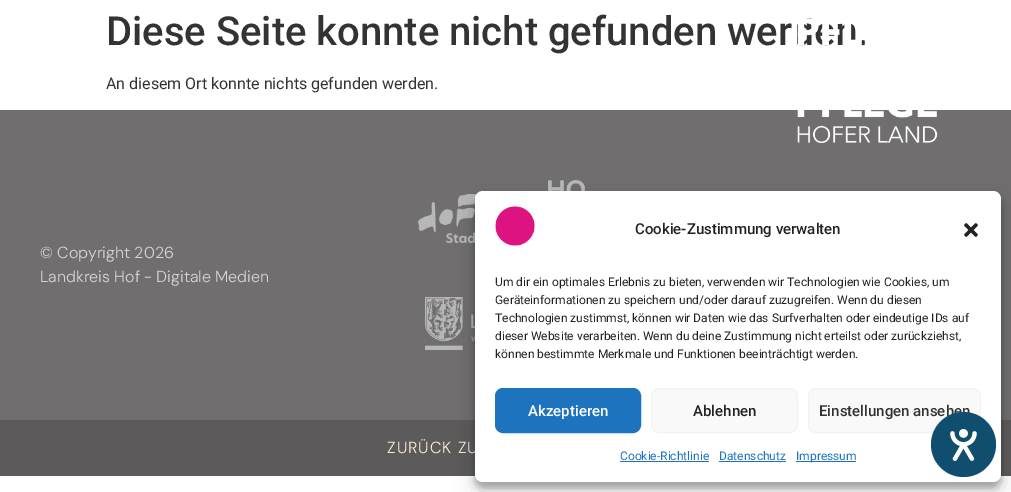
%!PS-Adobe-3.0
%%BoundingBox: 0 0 1011 492
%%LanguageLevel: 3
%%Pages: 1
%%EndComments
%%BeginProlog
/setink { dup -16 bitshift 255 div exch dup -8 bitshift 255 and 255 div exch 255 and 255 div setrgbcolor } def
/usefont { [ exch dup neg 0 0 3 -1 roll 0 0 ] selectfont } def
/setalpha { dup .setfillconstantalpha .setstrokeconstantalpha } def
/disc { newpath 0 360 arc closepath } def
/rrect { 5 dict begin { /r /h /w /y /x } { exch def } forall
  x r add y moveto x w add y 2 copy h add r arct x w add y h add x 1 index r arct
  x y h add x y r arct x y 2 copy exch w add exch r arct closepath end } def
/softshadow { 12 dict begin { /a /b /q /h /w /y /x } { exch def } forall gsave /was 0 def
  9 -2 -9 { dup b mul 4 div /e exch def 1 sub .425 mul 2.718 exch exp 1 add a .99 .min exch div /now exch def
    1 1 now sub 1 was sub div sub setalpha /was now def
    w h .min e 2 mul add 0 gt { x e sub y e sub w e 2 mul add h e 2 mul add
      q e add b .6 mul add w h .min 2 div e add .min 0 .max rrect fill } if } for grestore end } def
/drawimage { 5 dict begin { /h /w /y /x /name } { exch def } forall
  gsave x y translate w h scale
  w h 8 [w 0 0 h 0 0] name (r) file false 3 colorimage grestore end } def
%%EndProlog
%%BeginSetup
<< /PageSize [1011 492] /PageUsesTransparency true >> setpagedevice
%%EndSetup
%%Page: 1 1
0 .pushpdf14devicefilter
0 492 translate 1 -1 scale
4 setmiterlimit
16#FFFFFF setink
0 0 1011 492 rectfill
/Roboto-Medium 40 usefont
16#333333 setink
106 45 moveto (Diese Seite konnte nicht gefunden wer) show
/Roboto-Regular 16 usefont
106 89 moveto (An diesem Ort konnte nichts gefunden werden.) show
(img1.raw) 797 18 69 28 drawimage
16#706E6F setink
0 110 1011 310 rectfill
(img2.raw) 797 110 141 33 drawimage
/DMSans-Light 16 usefont
16#D6D5D5 setink
40 258 moveto (© Copyright 2026) show
40 282 moveto (Landkreis Hof - Digitale Medien) show
(img3.raw) 548 180 37 11 drawimage
(img4.raw) 418 194 59 49 drawimage
(img5.raw) 425 297 50 53 drawimage
16#5C5A5B setink
0 420 1011 56 rectfill
16#FEEDD4 setink
387 453 moveto 1 0 (ZURÜCK ZU) ashow
16#000000 setink
475 197 526 291 8 3 0.23 softshadow
475 201 526 291 8 10 0.19 softshadow
16#FFFFFF setink
475 191 526 291 8 rrect fill
(img6.raw) 495 206 40 40 drawimage
/Roboto-Medium 15 usefont
16#222222 setink
635 234 moveto (Cookie-Zustimmung verwalten) show
(img7.raw) 964 223 14 14 drawimage
/Roboto-Regular 12 usefont
[
    [(Um dir ein optimales Erlebnis zu bieten, verwenden wir Technologien wie Cookies, um) 495 286]
    [(Geräteinformationen zu speichern und/oder darauf zuzugreifen. Wenn du diesen) 495 304]
    [(Technologien zustimmst, können wir Daten wie das Surfverhalten oder eindeutige IDs auf) 495 322]
    [(dieser Website verarbeiten. Wenn du deine Zustimmung nicht erteilst oder zurückziehst,) 495 340]
    [(können bestimmte Merkmale und Funktionen beeinträchtigt werden.) 495 358]
] { aload pop moveto show } forall
16#1E73BE setink
495.5 388.5 145 44 7.5 rrect gsave fill grestore
stroke
/Roboto-Medium 15 usefont
16#FFFFFF setink
528 416 moveto (Akzeptieren) show
16#F9F9F9 setink
651.5 388.5 146 44 7.5 rrect gsave fill grestore
16#F2F2F2 setink
stroke
16#222222 setink
693 416 moveto (Ablehnen) show
16#F9F9F9 setink
808.5 388.5 172 44 7.5 rrect gsave fill grestore
16#F2F2F2 setink
stroke
16#333333 setink
819 416 moveto (Einstellungen ansehen) show
/Roboto-Regular 12 usefont
16#1E73BE setink
620 460 moveto (Cookie-Richtlinie) show
620 461 89 1 rectfill
719 460 moveto (Datenschutz) show
719 461 67 1 rectfill
796 461 60 1 rectfill
796 460 moveto (Impressum) show
16#104E70 setink
963.5 444.5 32.5 disc fill
(img8.raw) 950 429 27 32 drawimage
.poppdf14devicefilter showpage
%%EOF
